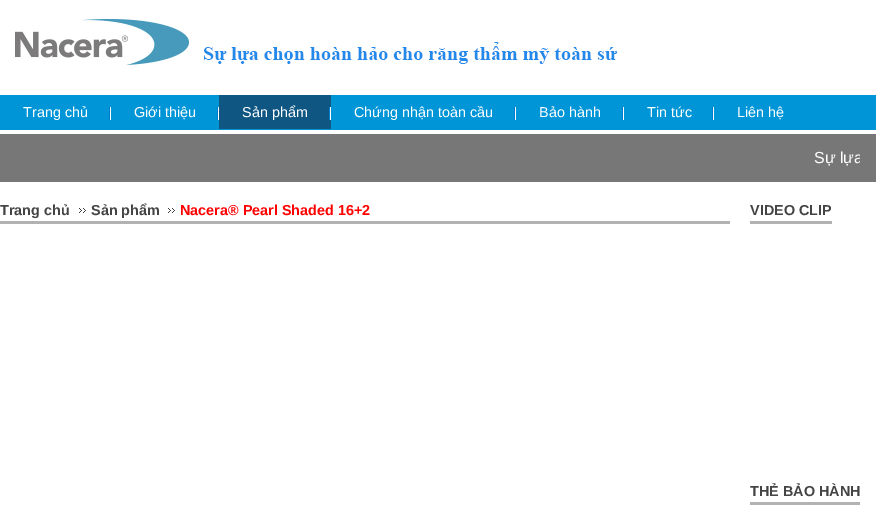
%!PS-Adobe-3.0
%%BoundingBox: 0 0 876 505
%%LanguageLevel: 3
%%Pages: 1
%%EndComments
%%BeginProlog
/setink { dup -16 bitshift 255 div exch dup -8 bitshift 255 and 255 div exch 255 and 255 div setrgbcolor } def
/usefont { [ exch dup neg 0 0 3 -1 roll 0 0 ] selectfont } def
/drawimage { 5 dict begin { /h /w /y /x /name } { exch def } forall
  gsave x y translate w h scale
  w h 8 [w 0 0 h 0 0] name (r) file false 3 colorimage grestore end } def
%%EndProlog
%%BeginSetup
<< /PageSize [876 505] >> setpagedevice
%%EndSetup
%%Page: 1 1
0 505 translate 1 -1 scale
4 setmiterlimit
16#FFFFFF setink
0 0 876 505 rectfill
(img1.raw) 15 19 603 46 drawimage
16#0095D6 setink
0 95 876 35 rectfill
(img2.raw) 109 107 2 13 drawimage
/LiberationSans-Regular 14.4 usefont
16#FFFFFF setink
23 117 moveto (Trang chủ) show
(img2.raw) 217 107 2 13 drawimage
134 117 moveto (Giới thiệu) show
16#0F5683 setink
219 95 112 34 rectfill
(img2.raw) 329 107 2 13 drawimage
16#FFFFFF setink
242 117 moveto (Sản phẩm) show
(img2.raw) 514 107 2 13 drawimage
354 117 moveto (Chứng nhận toàn cầu) show
(img2.raw) 622 107 2 13 drawimage
539 117 moveto (Bảo hành) show
(img2.raw) 712 107 2 13 drawimage
647 117 moveto (Tin tức) show
737 117 moveto (Liên hệ) show
16#777777 setink
0 134 876 48 rectfill
gsave
20 139 840 38 rectclip
/LiberationSans-Regular 16 usefont
16#FFFFFF setink
814 163 moveto (Sự lựa) show
grestore
16#B2B2B2 setink
0 221 730 3 rectfill
/LiberationSans-Bold 14.4 usefont
16#444444 setink
0 215 moveto (Trang chủ) show
(img3.raw) 79 208 7 5 drawimage
91 215 moveto (Sản phẩm) show
(img3.raw) 168 208 7 5 drawimage
16#FF0000 setink
180 215 moveto (Nacera® Pearl Shaded 16+2) show
16#444444 setink
750 215 moveto (VIDEO CLIP) show
16#B2B2B2 setink
750 221 82 3 rectfill
16#444444 setink
750 496 moveto (THẺ BẢO HÀNH) show
16#B2B2B2 setink
750 502 110 3 rectfill
showpage
%%EOF
